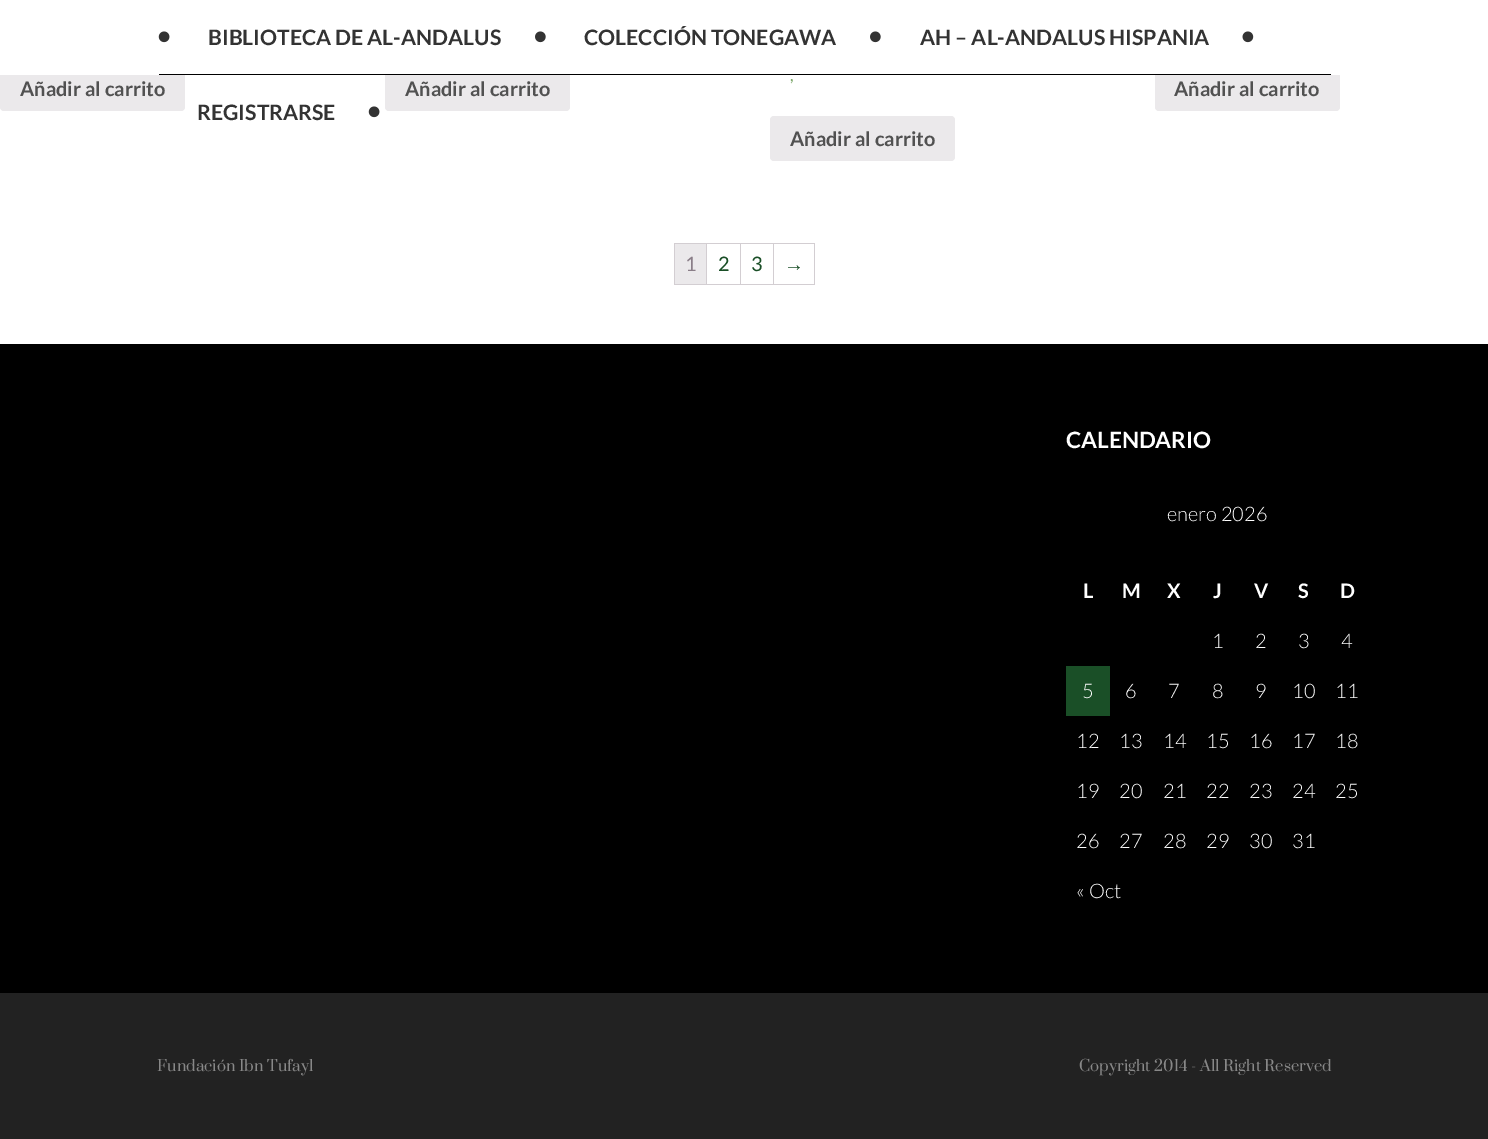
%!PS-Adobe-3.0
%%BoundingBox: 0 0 1488 1139
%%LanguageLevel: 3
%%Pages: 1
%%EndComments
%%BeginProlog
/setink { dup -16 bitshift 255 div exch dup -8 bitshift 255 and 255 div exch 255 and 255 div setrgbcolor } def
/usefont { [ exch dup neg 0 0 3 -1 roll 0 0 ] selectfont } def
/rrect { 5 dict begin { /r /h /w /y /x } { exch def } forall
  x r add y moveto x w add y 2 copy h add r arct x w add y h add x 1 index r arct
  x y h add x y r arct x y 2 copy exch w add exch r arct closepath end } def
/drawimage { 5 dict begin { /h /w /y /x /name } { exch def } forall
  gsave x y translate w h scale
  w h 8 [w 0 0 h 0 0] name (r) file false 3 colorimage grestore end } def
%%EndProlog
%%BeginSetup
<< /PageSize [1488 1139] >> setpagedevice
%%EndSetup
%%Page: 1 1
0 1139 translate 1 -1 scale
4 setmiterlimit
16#FFFFFF setink
0 0 1488 1139 rectfill
16#EBE9EB setink
0 66 185 45 4 rrect fill
385 66 185 45 4 rrect fill
1155 66 185 45 4 rrect fill
16#FFFFFF setink
0 66 1340 9 rectfill
16#000000 setink
159 74 1172 1 rectfill
(img1.raw) 158 31 12 12 drawimage
/Lato-Bold 21.25 usefont
16#333333 setink
208 45 moveto (BIBLIOTECA DE AL-ANDALUS) show
(img2.raw) 535 31 11 12 drawimage
584 45 moveto (COLECCIÓN TONEGAWA) show
(img2.raw) 870 31 11 12 drawimage
920 45 moveto (AH – AL-ANDALUS HISPANIA) show
(img3.raw) 1242 31 12 12 drawimage
197 120 moveto (REGISTRARSE) show
(img1.raw) 368 106 12 12 drawimage
/Lato-Bold 20 usefont
16#515151 setink
20 96 moveto (Añadir al carrito) show
405 96 moveto (Añadir al carrito) show
/Lato-Regular 17 usefont
16#77A464 setink
790 81 moveto (,) show
16#EBE9EB setink
770 116 185 45 4 rrect fill
/Lato-Bold 20 usefont
16#515151 setink
790 146 moveto (Añadir al carrito) show
1174 96 moveto (Añadir al carrito) show
[
    [674 243 141 1 16#D3CED2]
    [674 284 141 1 16#D3CED2]
    [674 243 1 42 16#D3CED2]
    [706 244 1 40 16#D3CED2]
    [675 244 31 40 16#EBE9EB]
] { aload pop setink rectfill } forall
/Lato-Regular 20 usefont
16#8A7E88 setink
685 271 moveto (1) show
16#D3CED2 setink
740 244 1 40 rectfill
16#1A4F27 setink
718 271 moveto (2) show
16#D3CED2 setink
773 244 1 40 rectfill
16#1A4F27 setink
751 271 moveto (3) show
16#D3CED2 setink
814 244 1 40 rectfill
/LiberationSans-Regular 20 usefont
16#1A4F27 setink
784 271 moveto (→) show
16#000000 setink
0 344 1488 649 rectfill
/Lato-Bold 22.5 usefont
16#FFFFFF setink
1066 448 moveto (CALENDARIO) show
/Lato-Light 20 usefont
1167 521 moveto (enero 2026) show
/Lato-Bold 20 usefont
[
    [(L) 1083 598]
    [(M) 1122 598]
    [(X) 1167 598]
    [(J) 1213 598]
    [(V) 1254 598]
    [(S) 1298 598]
    [(D) 1340 598]
] { aload pop moveto show } forall
/Lato-Light 20 usefont
[
    [(1) 1212 648]
    [(2) 1255 648]
    [(3) 1298 648]
    [(4) 1341 648]
] { aload pop moveto show } forall
16#1A4F27 setink
1066 666 44 50 rectfill
16#FFFFFF setink
[
    [(5) 1082 698]
    [(6) 1125 698]
    [(7) 1168 698]
    [(8) 1212 698]
    [(9) 1255 698]
    [(10) 1292 698]
    [(11) 1335 698]
    [(12) 1076 748]
    [(13) 1119 748]
    [(14) 1163 748]
    [(15) 1206 748]
    [(16) 1249 748]
    [(17) 1292 748]
    [(18) 1335 748]
    [(19) 1076 798]
    [(20) 1119 798]
    [(21) 1163 798]
    [(22) 1206 798]
    [(23) 1249 798]
    [(24) 1292 798]
    [(25) 1335 798]
    [(26) 1076 848]
    [(27) 1119 848]
    [(28) 1163 848]
    [(29) 1206 848]
    [(30) 1249 848]
    [(31) 1292 848]
    [(« Oct) 1076 898]
] { aload pop moveto show } forall
16#222222 setink
0 993 1488 146 rectfill
/Prata-Regular 15 usefont
16#888888 setink
157 1071 moveto (Fundación Ibn Tufayl) show
1079 1071 moveto (Copyright 2014 - All Right Reserved) show
showpage
%%EOF
